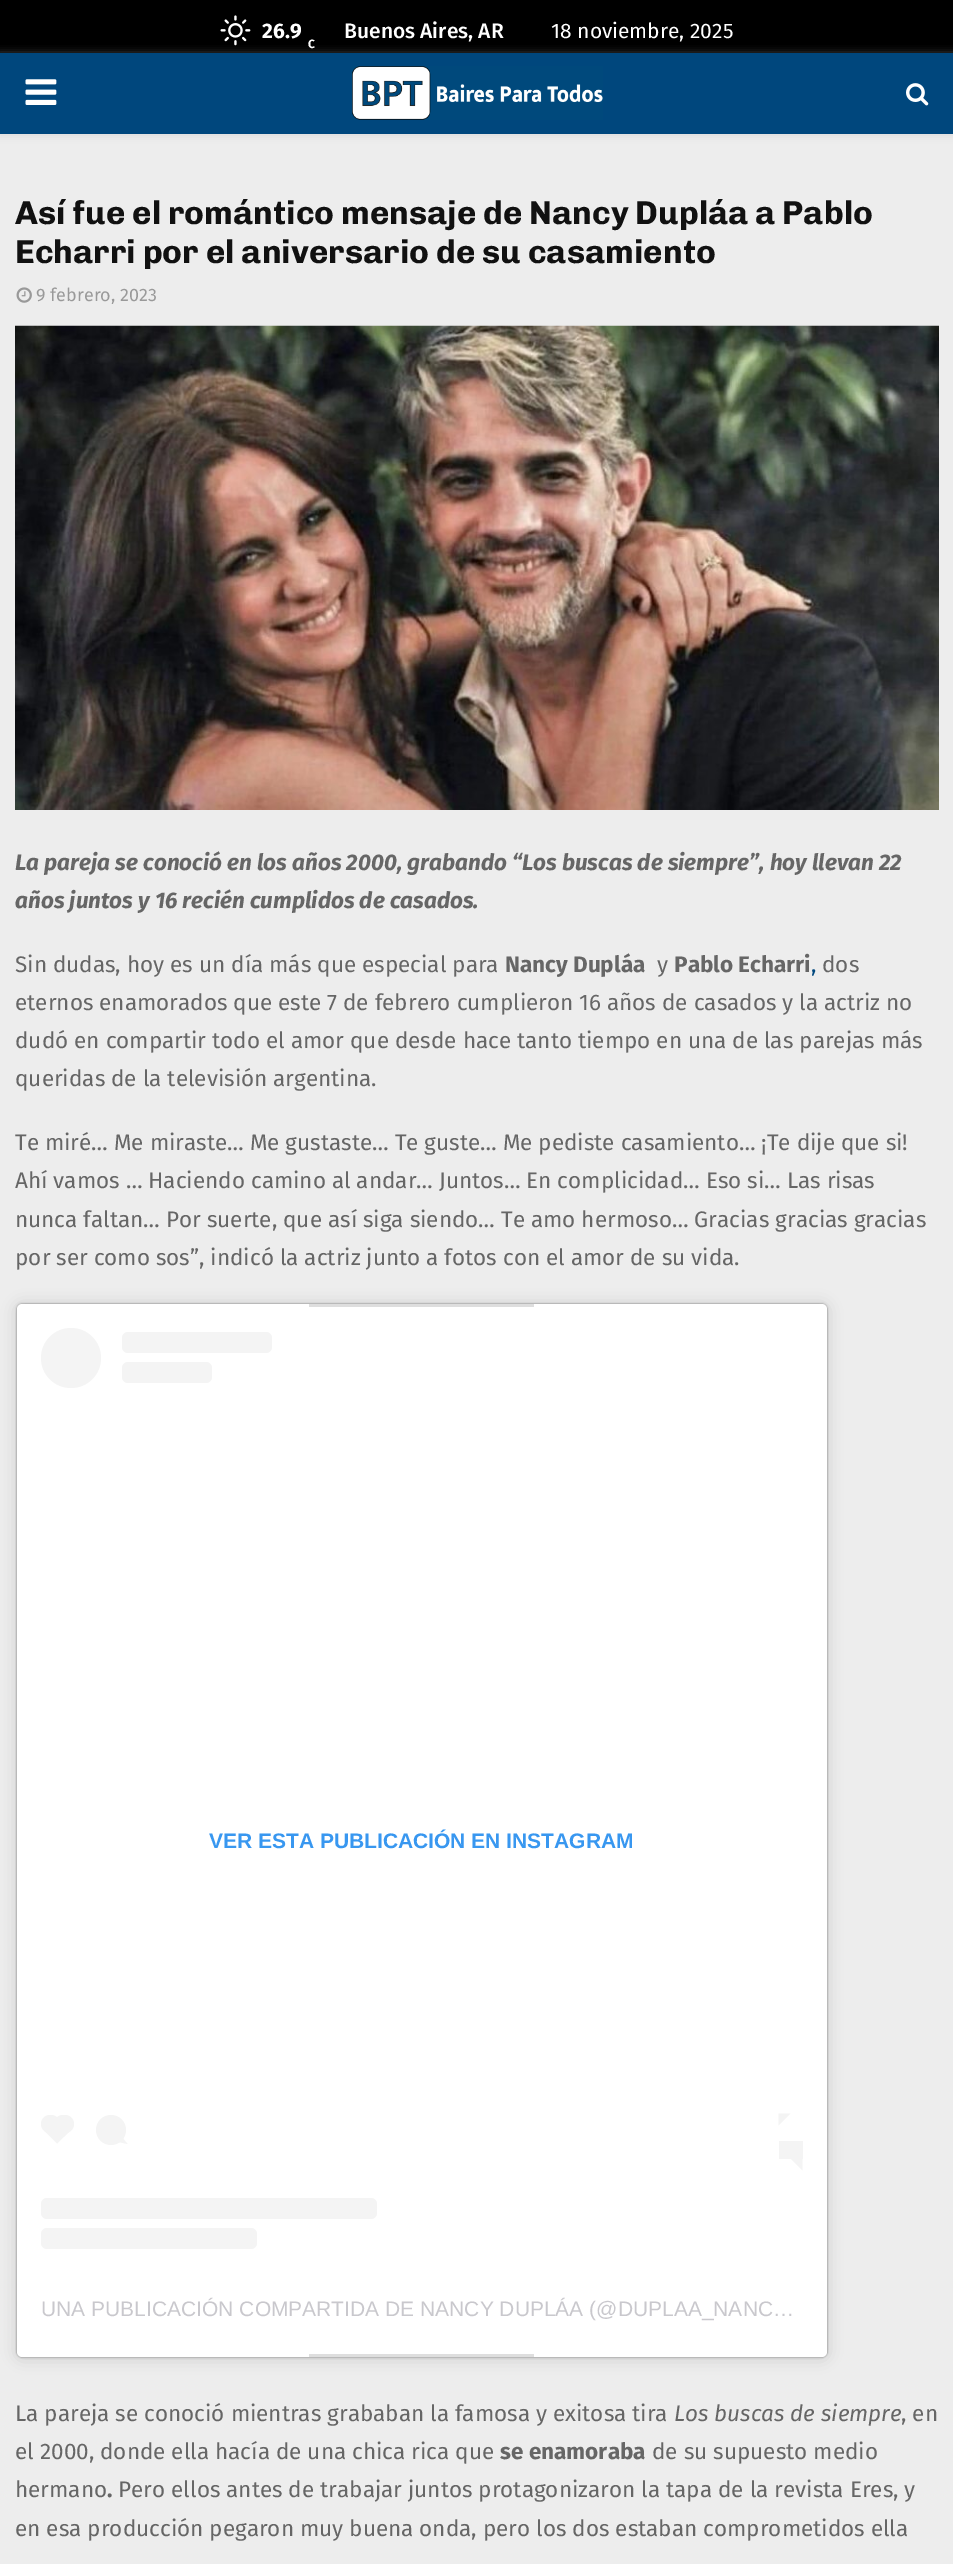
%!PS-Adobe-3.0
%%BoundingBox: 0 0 953 2564
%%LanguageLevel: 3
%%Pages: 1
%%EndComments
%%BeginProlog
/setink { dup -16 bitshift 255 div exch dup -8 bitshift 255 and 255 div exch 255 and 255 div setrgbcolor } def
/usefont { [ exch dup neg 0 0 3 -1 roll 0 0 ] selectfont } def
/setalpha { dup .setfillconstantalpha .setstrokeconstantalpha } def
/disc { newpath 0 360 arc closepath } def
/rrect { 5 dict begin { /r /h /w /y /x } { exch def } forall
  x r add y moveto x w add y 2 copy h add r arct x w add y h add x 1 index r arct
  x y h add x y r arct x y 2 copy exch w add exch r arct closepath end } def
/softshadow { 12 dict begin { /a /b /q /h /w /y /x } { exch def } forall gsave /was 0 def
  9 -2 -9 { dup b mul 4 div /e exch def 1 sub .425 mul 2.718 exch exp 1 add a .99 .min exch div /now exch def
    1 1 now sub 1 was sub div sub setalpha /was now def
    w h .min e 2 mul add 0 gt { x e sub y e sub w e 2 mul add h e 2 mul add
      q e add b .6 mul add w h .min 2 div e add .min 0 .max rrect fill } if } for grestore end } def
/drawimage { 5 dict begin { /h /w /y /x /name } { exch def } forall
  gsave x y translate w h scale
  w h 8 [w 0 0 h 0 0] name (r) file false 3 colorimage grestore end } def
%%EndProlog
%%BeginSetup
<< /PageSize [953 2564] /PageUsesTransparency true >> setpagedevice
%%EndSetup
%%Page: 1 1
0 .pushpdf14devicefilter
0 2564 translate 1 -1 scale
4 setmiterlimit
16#EDEDED setink
0 0 953 2564 rectfill
16#000000 setink
0 0 953 53 rectfill
(img1.raw) 220 15 31 31 drawimage
/FiraSans-Bold 21 usefont
16#FFFFFF setink
262 38 moveto (26.9) show
/FiraSans-Bold 12 usefont
308 48 moveto (C) show
/FiraSans-Medium 21 usefont
344 38 moveto (Buenos Aires, AR) show
/FiraSans-Regular 21 usefont
551 38 moveto (18 noviembre, 2025) show
16#BEBEBE setink
0 54 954 81 0 4 0.46 softshadow
16#00477D setink
0 53 953 81 rectfill
(img2.raw) 25 79 32 26 drawimage
(img3.raw) 351 66 252 54 drawimage
(img4.raw) 906 83 23 23 drawimage
/Chivo-Bold 33 usefont
16#111111 setink
15 224 moveto (Así fue el romántico mensaje de Nancy Dupláa a Pablo) show
15 263 moveto (Echarri por el aniversario de su casamiento) show
(img5.raw) 16 287 16 16 drawimage
/FiraSans-Regular 18 usefont
16#999999 setink
36 301 moveto (9 febrero, 2023) show
(img6.raw) 15 325 924 485 drawimage
/FiraSans-BoldItalic 22.5 usefont
16#666666 setink
15 870 moveto (La pareja se conoció en los años 2000, grabando “Los buscas de siempre”, hoy llevan 22) show
15 908 moveto (años juntos y 16 recién cumplidos de casados.) show
/FiraSans-Regular 22.5 usefont
15 972 moveto (Sin dudas, hoy es un día más que especial para) show
/FiraSans-Bold 22.5 usefont
505 972 moveto (Nancy Dupláa) show
/FiraSans-Regular 22.5 usefont
657 972 moveto (y) show
/FiraSans-Bold 22.5 usefont
674 972 moveto (Pablo Echarri) show
/FiraSans-Regular 22.5 usefont
16#00477D setink
811 972 moveto (,) show
16#666666 setink
[
    [(dos) 822 972]
    [(eternos enamorados que este 7 de febrero cumplieron 16 años de casados y la actriz no) 15 1010]
    [(dudó en compartir todo el amor que desde hace tanto tiempo en una de las parejas más) 15 1048]
    [(queridas de la televisión argentina.) 15 1086]
    [(Te miré… Me miraste… Me gustaste… Te guste… Me pediste casamiento… ¡Te dije que si!) 15 1150]
    [(Ahí vamos … Haciendo camino al andar… Juntos… En complicidad… Eso si… Las risas) 15 1188]
    [(nunca faltan… Por suerte, que así siga siendo… Te amo hermoso… Gracias gracias gracias) 15 1227]
    [(por ser como sos”, indicó la actriz junto a fotos con el amor de su vida.) 15 1265]
] { aload pop moveto show } forall
16#000000 setink
17 1305 810 1053 5 7.5 0.15 softshadow
17 1304 810 1053 5 1 0.5 softshadow
16#FFFFFF setink
17 1304 810 1053 5 rrect fill
16#DEDEDE setink
309 1304 225 3 rectfill
16#F4F4F4 setink
71 1358 30 disc fill
122 1332 150 21 6 rrect fill
122 1362 90 21 6 rrect fill
/LiberationSans-Bold 21 usefont
16#3897F0 setink
209 1848 moveto (VER ESTA PUBLICACIÓN EN INSTAGRAM) show
16#F4F4F4 setink
41 2115 19 18 9 rrect fill
44 2130.5 moveto 57 2117 lineto 70.5 2130.5 lineto 57 2143.5 lineto closepath fill
54 2115 20 18 9 rrect fill
111 2130 15 disc fill
118.5 2142 moveto 121.5 2136.5 lineto 127.5 2144 lineto closepath fill
778.5 2113.5 moveto 790.5 2113.5 lineto 778.5 2125.5 lineto closepath fill
779 2141 24 18 rectfill
790.5 2158.5 moveto 802.5 2158.5 lineto 802.5 2170.5 lineto closepath fill
41 2198 336 21 6 rrect fill
41 2228 216 21 6 rrect fill
/LiberationSans-Regular 21 usefont
16#C9C8CD setink
41 2316 moveto (UNA PUBLICACIÓN COMPARTIDA DE NANCY DUPLÁA \(@DUPLAA_NANC…) show
16#DEDEDE setink
309 2354 225 3 rectfill
/FiraSans-Regular 22.5 usefont
16#666666 setink
15 2421 moveto (La pareja se conoció mientras grababan la famosa y exitosa tira) show
/FiraSans-Italic 22.5 usefont
674 2421 moveto (Los buscas de siempre) show
/FiraSans-Regular 22.5 usefont
901 2421 moveto (, en) show
15 2459 moveto (el 2000, donde ella hacía de una chica rica que) show
/FiraSans-Bold 22.5 usefont
500 2459 moveto (se enamoraba) show
/FiraSans-Regular 22.5 usefont
652 2459 moveto (de su supuesto medio) show
15 2497 moveto (hermano) show
/FiraSans-Bold 22.5 usefont
107 2497 moveto (.) show
/FiraSans-Regular 22.5 usefont
118 2497 moveto (Pero ellos antes de trabajar juntos protagonizaron la tapa de la revista Eres, y) show
15 2536 moveto (en esa producción pegaron muy buena onda, pero los dos estaban comprometidos ella) show
.poppdf14devicefilter showpage
%%EOF
